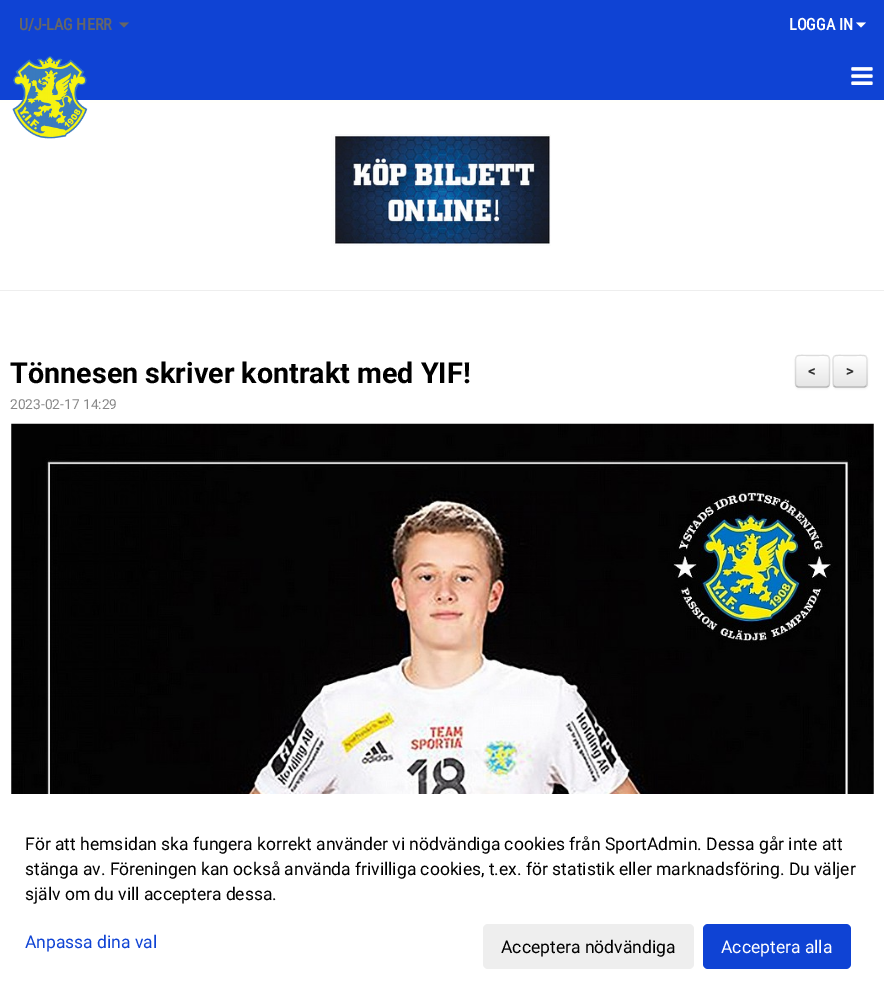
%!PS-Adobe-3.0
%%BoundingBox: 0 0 884 993
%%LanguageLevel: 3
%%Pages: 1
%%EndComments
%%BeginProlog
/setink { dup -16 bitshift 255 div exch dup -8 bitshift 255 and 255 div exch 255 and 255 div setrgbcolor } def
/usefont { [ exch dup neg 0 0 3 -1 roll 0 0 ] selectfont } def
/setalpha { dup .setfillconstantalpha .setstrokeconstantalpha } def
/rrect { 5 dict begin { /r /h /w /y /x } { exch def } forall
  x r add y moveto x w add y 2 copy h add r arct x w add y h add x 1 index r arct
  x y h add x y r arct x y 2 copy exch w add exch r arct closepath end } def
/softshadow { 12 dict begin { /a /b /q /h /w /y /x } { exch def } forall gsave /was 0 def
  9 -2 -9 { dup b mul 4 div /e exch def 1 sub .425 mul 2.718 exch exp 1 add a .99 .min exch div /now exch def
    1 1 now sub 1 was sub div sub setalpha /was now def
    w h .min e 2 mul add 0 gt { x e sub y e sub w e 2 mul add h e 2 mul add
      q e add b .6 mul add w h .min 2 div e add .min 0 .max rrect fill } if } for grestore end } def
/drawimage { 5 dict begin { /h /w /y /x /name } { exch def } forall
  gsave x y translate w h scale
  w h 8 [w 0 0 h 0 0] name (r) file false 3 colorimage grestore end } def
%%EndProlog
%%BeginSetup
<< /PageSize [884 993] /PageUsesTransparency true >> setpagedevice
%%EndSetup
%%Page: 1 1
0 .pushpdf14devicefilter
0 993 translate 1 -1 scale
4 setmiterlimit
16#0F43D4 setink
0 0 884 993 rectfill
/RobotoCondensed-Bold 16.25 usefont
16#666666 setink
19 30 moveto (U/J-LAG HERR) show
119 22.5 moveto 129 22.5 lineto 124 27.5 lineto closepath fill
16#FFFFFF setink
789 30 moveto (LOGGA IN) show
856 22.5 moveto 866 22.5 lineto 861 27.5 lineto closepath fill
0 103 884 890 rectfill
16#FFFFFC setink
0 100 884 3 rectfill
(img1.raw) 12 56 76 83 drawimage
(img2.raw) 851 67 22 18 drawimage
(img3.raw) 331 134 220 112 drawimage
16#EEEEEE setink
0 290 884 1 rectfill
/Roboto-Bold 28.75 usefont
16#000000 setink
10 383 moveto (Tönnesen skriver kontrakt med YIF!) show
/Roboto-Regular 13.75 usefont
16#888888 setink
10 409 moveto (2023-02-17 14:29) show
(img4.raw) 11 423 863 371 drawimage
16#000000 setink
833 356 35 33 4 1 0.05 softshadow
16#F5F5F5 setink
833 355 35 33 4 rrect fill
gsave
833 355 35 33 4 rrect clip newpath
gsave 833 356 moveto 868 356 lineto 868 386 lineto 833 386 lineto closepath clip newpath
<< /ShadingType 2 /ColorSpace /DeviceRGB /Coords [850 356 850 386] /Extend [true true] /Function << /FunctionType 2 /Domain [0 1] /C0 [1 1 1] /C1 [0.902 0.902 0.902] /N 1 >> >> shfill grestore
grestore
16#B3B3B3 setink
1.2 setlinewidth
866 386 moveto 865.5 386.5 864.5 387 864 387 curveto 836 387 lineto 835.5 387 834.5 386.5 834 386 curveto stroke
0.1 setalpha
16#000000 setink
834 386 moveto 832.5 384.5 833 381.5 833 379.5 curveto 833 371 lineto 833 352.5 830.5 355.5 850 355.5 curveto 869.5 355.5 867 352.5 867 371 curveto 867 379.5 lineto 867 381.5 867.5 384.5 866 386 curveto stroke
1 setalpha
795 356 35 33 4 1 0.05 softshadow
16#F5F5F5 setink
795 355 35 33 4 rrect fill
gsave
795 355 35 33 4 rrect clip newpath
gsave 795 356 moveto 830 356 lineto 830 386 lineto 795 386 lineto closepath clip newpath
<< /ShadingType 2 /ColorSpace /DeviceRGB /Coords [813 356 813 386] /Extend [true true] /Function << /FunctionType 2 /Domain [0 1] /C0 [1 1 1] /C1 [0.902 0.902 0.902] /N 1 >> >> shfill grestore
grestore
16#B3B3B3 setink
828.5 386 moveto 828 386.5 827 387 826 387 curveto 799 387 lineto 798 387 797 386.5 796.5 386 curveto stroke
0.1 setalpha
16#000000 setink
796.5 386 moveto 795 384.5 795.5 381.5 795.5 379.5 curveto 795.5 371 lineto 795.5 352.5 793 355.5 812.5 355.5 curveto 832 355.5 829.5 352.5 829.5 371 curveto 829.5 379.5 lineto 829.5 381.5 830 384.5 828.5 386 curveto stroke
/Roboto-Bold 15 usefont
1 setalpha
16#333333 setink
808 376 moveto (<) show
846 376 moveto (>) show
/Roboto-Regular 17.5 usefont
16#000000 setink
[
    [(För att hemsidan ska fungera korrekt använder vi nödvändiga cookies från SportAdmin. Dessa går inte att) 25 850]
    [(stänga av. Föreningen kan också använda frivilliga cookies, t.ex. för statistik eller marknadsföring. Du väljer) 25 875]
    [(själv om du vill acceptera dessa.) 25 900]
] { aload pop moveto show } forall
16#0F43D4 setink
25 948 moveto (Anpassa dina val) show
16#EEEEEE setink
483 924 211 45 5 rrect fill
16#000000 setink
501 953 moveto (Acceptera nödvändiga) show
16#0F43D4 setink
703 924 148 45 5 rrect fill
16#FFFFFF setink
721 953 moveto (Acceptera alla) show
.poppdf14devicefilter showpage
%%EOF
